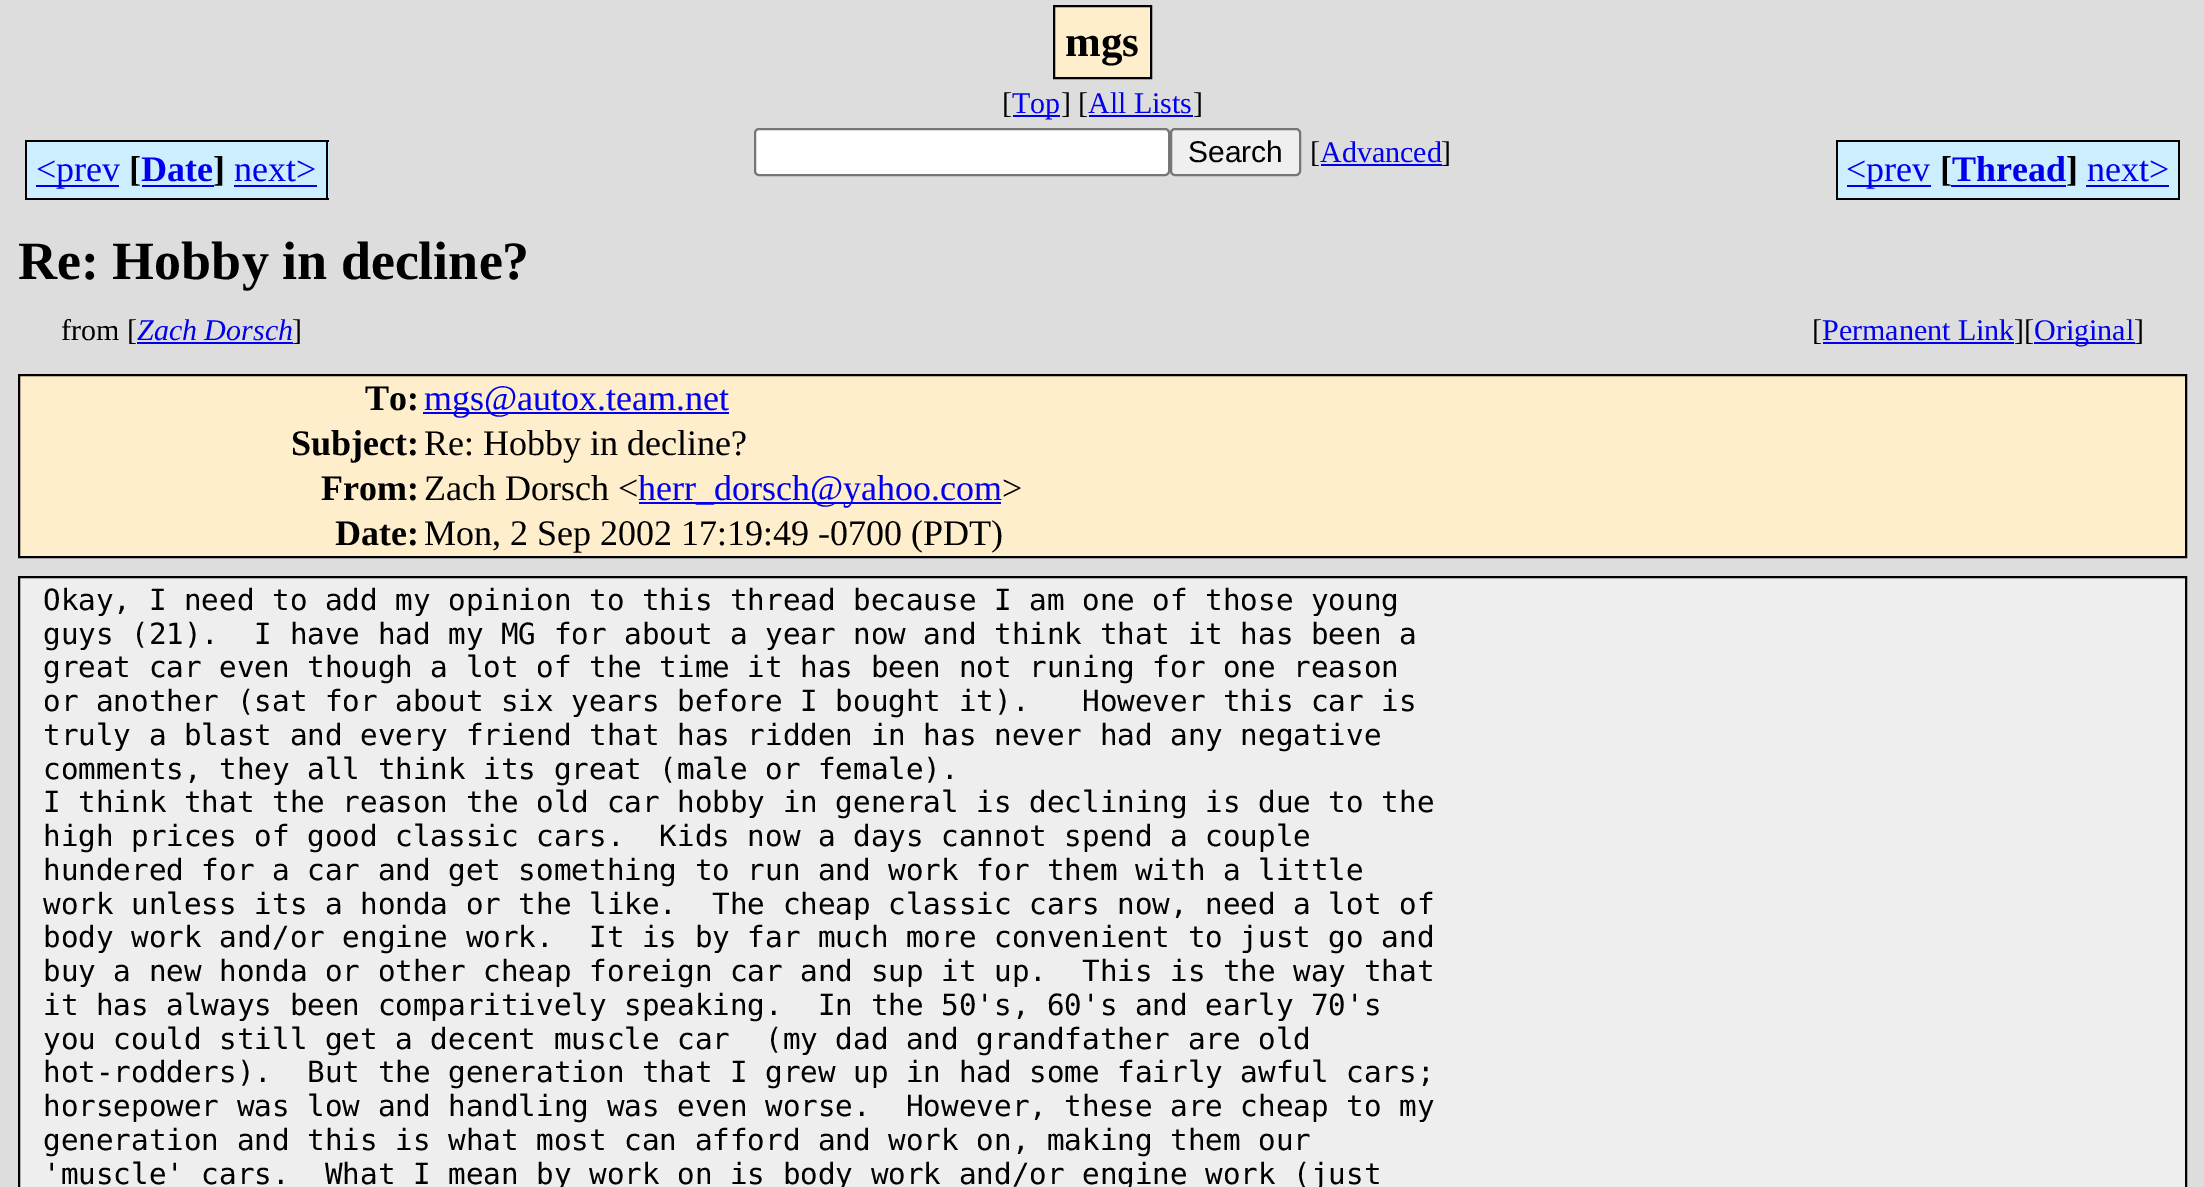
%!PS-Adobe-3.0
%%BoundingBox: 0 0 2204 1187
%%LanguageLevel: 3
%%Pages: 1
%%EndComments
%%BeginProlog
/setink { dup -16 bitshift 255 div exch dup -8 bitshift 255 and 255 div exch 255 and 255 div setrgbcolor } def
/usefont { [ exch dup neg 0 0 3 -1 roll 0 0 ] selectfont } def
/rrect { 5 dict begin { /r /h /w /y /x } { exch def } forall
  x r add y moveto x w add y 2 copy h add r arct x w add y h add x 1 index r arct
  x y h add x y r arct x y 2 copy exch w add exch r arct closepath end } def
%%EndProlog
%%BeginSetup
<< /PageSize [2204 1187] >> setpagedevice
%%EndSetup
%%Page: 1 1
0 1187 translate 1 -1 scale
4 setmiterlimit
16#DDDDDD setink
0 0 2204 1187 rectfill
16#FFEECC setink
1054 6 moveto 1151 6 lineto 1151 78 lineto 1054 78 lineto closepath gsave fill grestore
16#000000 setink
2 setlinewidth
stroke
/LiberationSerif-Bold 43 usefont
1065 56 moveto (mgs) show
/LiberationSerif-Regular 30 usefont
1002 113 moveto ([) show
16#0000EE setink
1013 115 47 2 rectfill
1012 113 moveto (Top) show
16#000000 setink
1061 113 moveto (] [) show
16#0000EE setink
1088 113 moveto (All Lists) show
16#000000 setink
1193 113 moveto (]) show
16#0000EE setink
1089 115 104 2 rectfill
16#FFFFFF setink
755 129 414 46 4 rrect gsave fill grestore
16#767676 setink
stroke
16#EFEFEF setink
1171 129 129 46 4 rrect gsave fill grestore
16#767676 setink
stroke
/LiberationSans-Regular 30 usefont
16#000000 setink
1188 162 moveto (Search) show
/LiberationSerif-Regular 30 usefont
1310 162 moveto ([) show
16#0000EE setink
1320 162 moveto (Advanced) show
16#000000 setink
1441 162 moveto (]) show
[
    [1321 164 121 2 16#0000EE]
    [27 142 302 56 16#CCEEFF]
    [36 185 83 2 16#0000EE]
] { aload pop setink rectfill } forall
/LiberationSerif-Regular 36 usefont
36 181 moveto (<prev) show
[
    [25 198 209 2 16#000000]
    [25 140 304 2 16#000000]
    [25 140 2 60 16#000000]
] { aload pop setink rectfill } forall
/LiberationSerif-Bold 36 usefont
129 181 moveto ([) show
16#0000EE setink
141 181 moveto (Date) show
16#000000 setink
213 181 moveto (]) show
16#0000EE setink
142 185 72 2 rectfill
/LiberationSerif-Regular 36 usefont
234 181 moveto (next>) show
[
    [326 140 2 60 16#000000]
    [234 198 95 2 16#000000]
    [234 185 83 2 16#0000EE]
    [1838 142 340 56 16#CCEEFF]
    [1847 185 84 2 16#0000EE]
] { aload pop setink rectfill } forall
1846 181 moveto (<prev) show
[
    [1836 198 250 2 16#000000]
    [1836 140 344 2 16#000000]
    [1836 140 2 60 16#000000]
] { aload pop setink rectfill } forall
/LiberationSerif-Bold 36 usefont
1940 181 moveto ([) show
16#0000EE setink
1951 185 115 2 rectfill
1952 181 moveto (Thread) show
16#000000 setink
2066 181 moveto (]) show
/LiberationSerif-Regular 36 usefont
16#0000EE setink
2087 181 moveto (next>) show
[
    [2178 140 2 60 16#000000]
    [2086 198 94 2 16#000000]
    [2086 185 83 2 16#0000EE]
] { aload pop setink rectfill } forall
/LiberationSerif-Bold 54 usefont
16#000000 setink
18 279 moveto (Re: Hobby in decline?) show
/LiberationSerif-Regular 30 usefont
61 340 moveto (from [) show
/LiberationSerif-Italic 30 usefont
16#0000EE setink
137 340 moveto (Zach Dorsch) show
/LiberationSerif-Regular 30 usefont
16#000000 setink
292 340 moveto (]) show
16#0000EE setink
137 342 156 2 rectfill
16#000000 setink
1812 340 moveto ([) show
16#0000EE setink
1822 340 moveto (Permanent Link) show
16#000000 setink
2014 340 moveto (][) show
16#0000EE setink
1823 342 191 2 rectfill
2034 342 101 2 rectfill
2034 340 moveto (Original) show
16#000000 setink
2134 340 moveto (]) show
16#FFEECC setink
19 375 moveto 2186 375 lineto 2186 557 lineto 19 557 lineto closepath gsave fill grestore
16#000000 setink
stroke
/LiberationSerif-Bold 36 usefont
365 410 moveto (To:) show
16#0000EE setink
423 412 306 2 rectfill
/LiberationSerif-Regular 36 usefont
424 410 moveto (mgs@autox.team.net) show
/LiberationSerif-Bold 36 usefont
16#000000 setink
291 455 moveto (Subject:) show
/LiberationSerif-Regular 36 usefont
424 455 moveto (Re: Hobby in decline?) show
/LiberationSerif-Bold 36 usefont
321 500 moveto (From:) show
/LiberationSerif-Regular 36 usefont
424 500 moveto (Zach Dorsch <) show
16#0000EE setink
639 502 362 2 rectfill
638 500 moveto (herr_dorsch@yahoo.com) show
16#000000 setink
1002 500 moveto (>) show
/LiberationSerif-Bold 36 usefont
335 545 moveto (Date:) show
/LiberationSerif-Regular 36 usefont
424 545 moveto (Mon, 2 Sep 2002 17:19:49 -0700 \(PDT\)) show
16#EEEEEE setink
19 577 moveto 2186 577 lineto 2186 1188 lineto 19 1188 lineto closepath gsave fill grestore
16#000000 setink
stroke
/DejaVuSansMono-Regular 29.25 usefont
[
    [(Okay, I need to add my opinion to this thread because I am one of those young) 43 610]
    [(guys \(21\).  I have had my MG for about a year now and think that it has been a) 43 644]
    [(great car even though a lot of the time it has been not runing for one reason) 43 677]
    [(or another \(sat for about six years before I bought it\).   However this car is) 43 711]
    [(truly a blast and every friend that has ridden in has never had any negative) 43 745]
    [(comments, they all think its great \(male or female\).) 43 779]
    [(I think that the reason the old car hobby in general is declining is due to the) 43 812]
    [(high prices of good classic cars.  Kids now a days cannot spend a couple) 43 846]
    [(hundered for a car and get something to run and work for them with a little) 43 880]
    [(work unless its a honda or the like.  The cheap classic cars now, need a lot of) 43 914]
    [(body work and/or engine work.  It is by far much more convenient to just go and) 43 947]
    [(buy a new honda or other cheap foreign car and sup it up.  This is the way that) 43 981]
    [(it has always been comparitively speaking.  In the 50's, 60's and early 70's) 43 1015]
    [(you could still get a decent muscle car  \(my dad and grandfather are old) 43 1049]
    [(hot-rodders\).  But the generation that I grew up in had some fairly awful cars;) 43 1082]
    [(horsepower was low and handling was even worse.  However, these are cheap to my) 43 1116]
    [(generation and this is what most can afford and work on, making them our) 43 1150]
    [('muscle' cars.  What I mean by work on is body work and/or engine work \(just) 43 1184]
] { aload pop moveto show } forall
showpage
%%EOF
